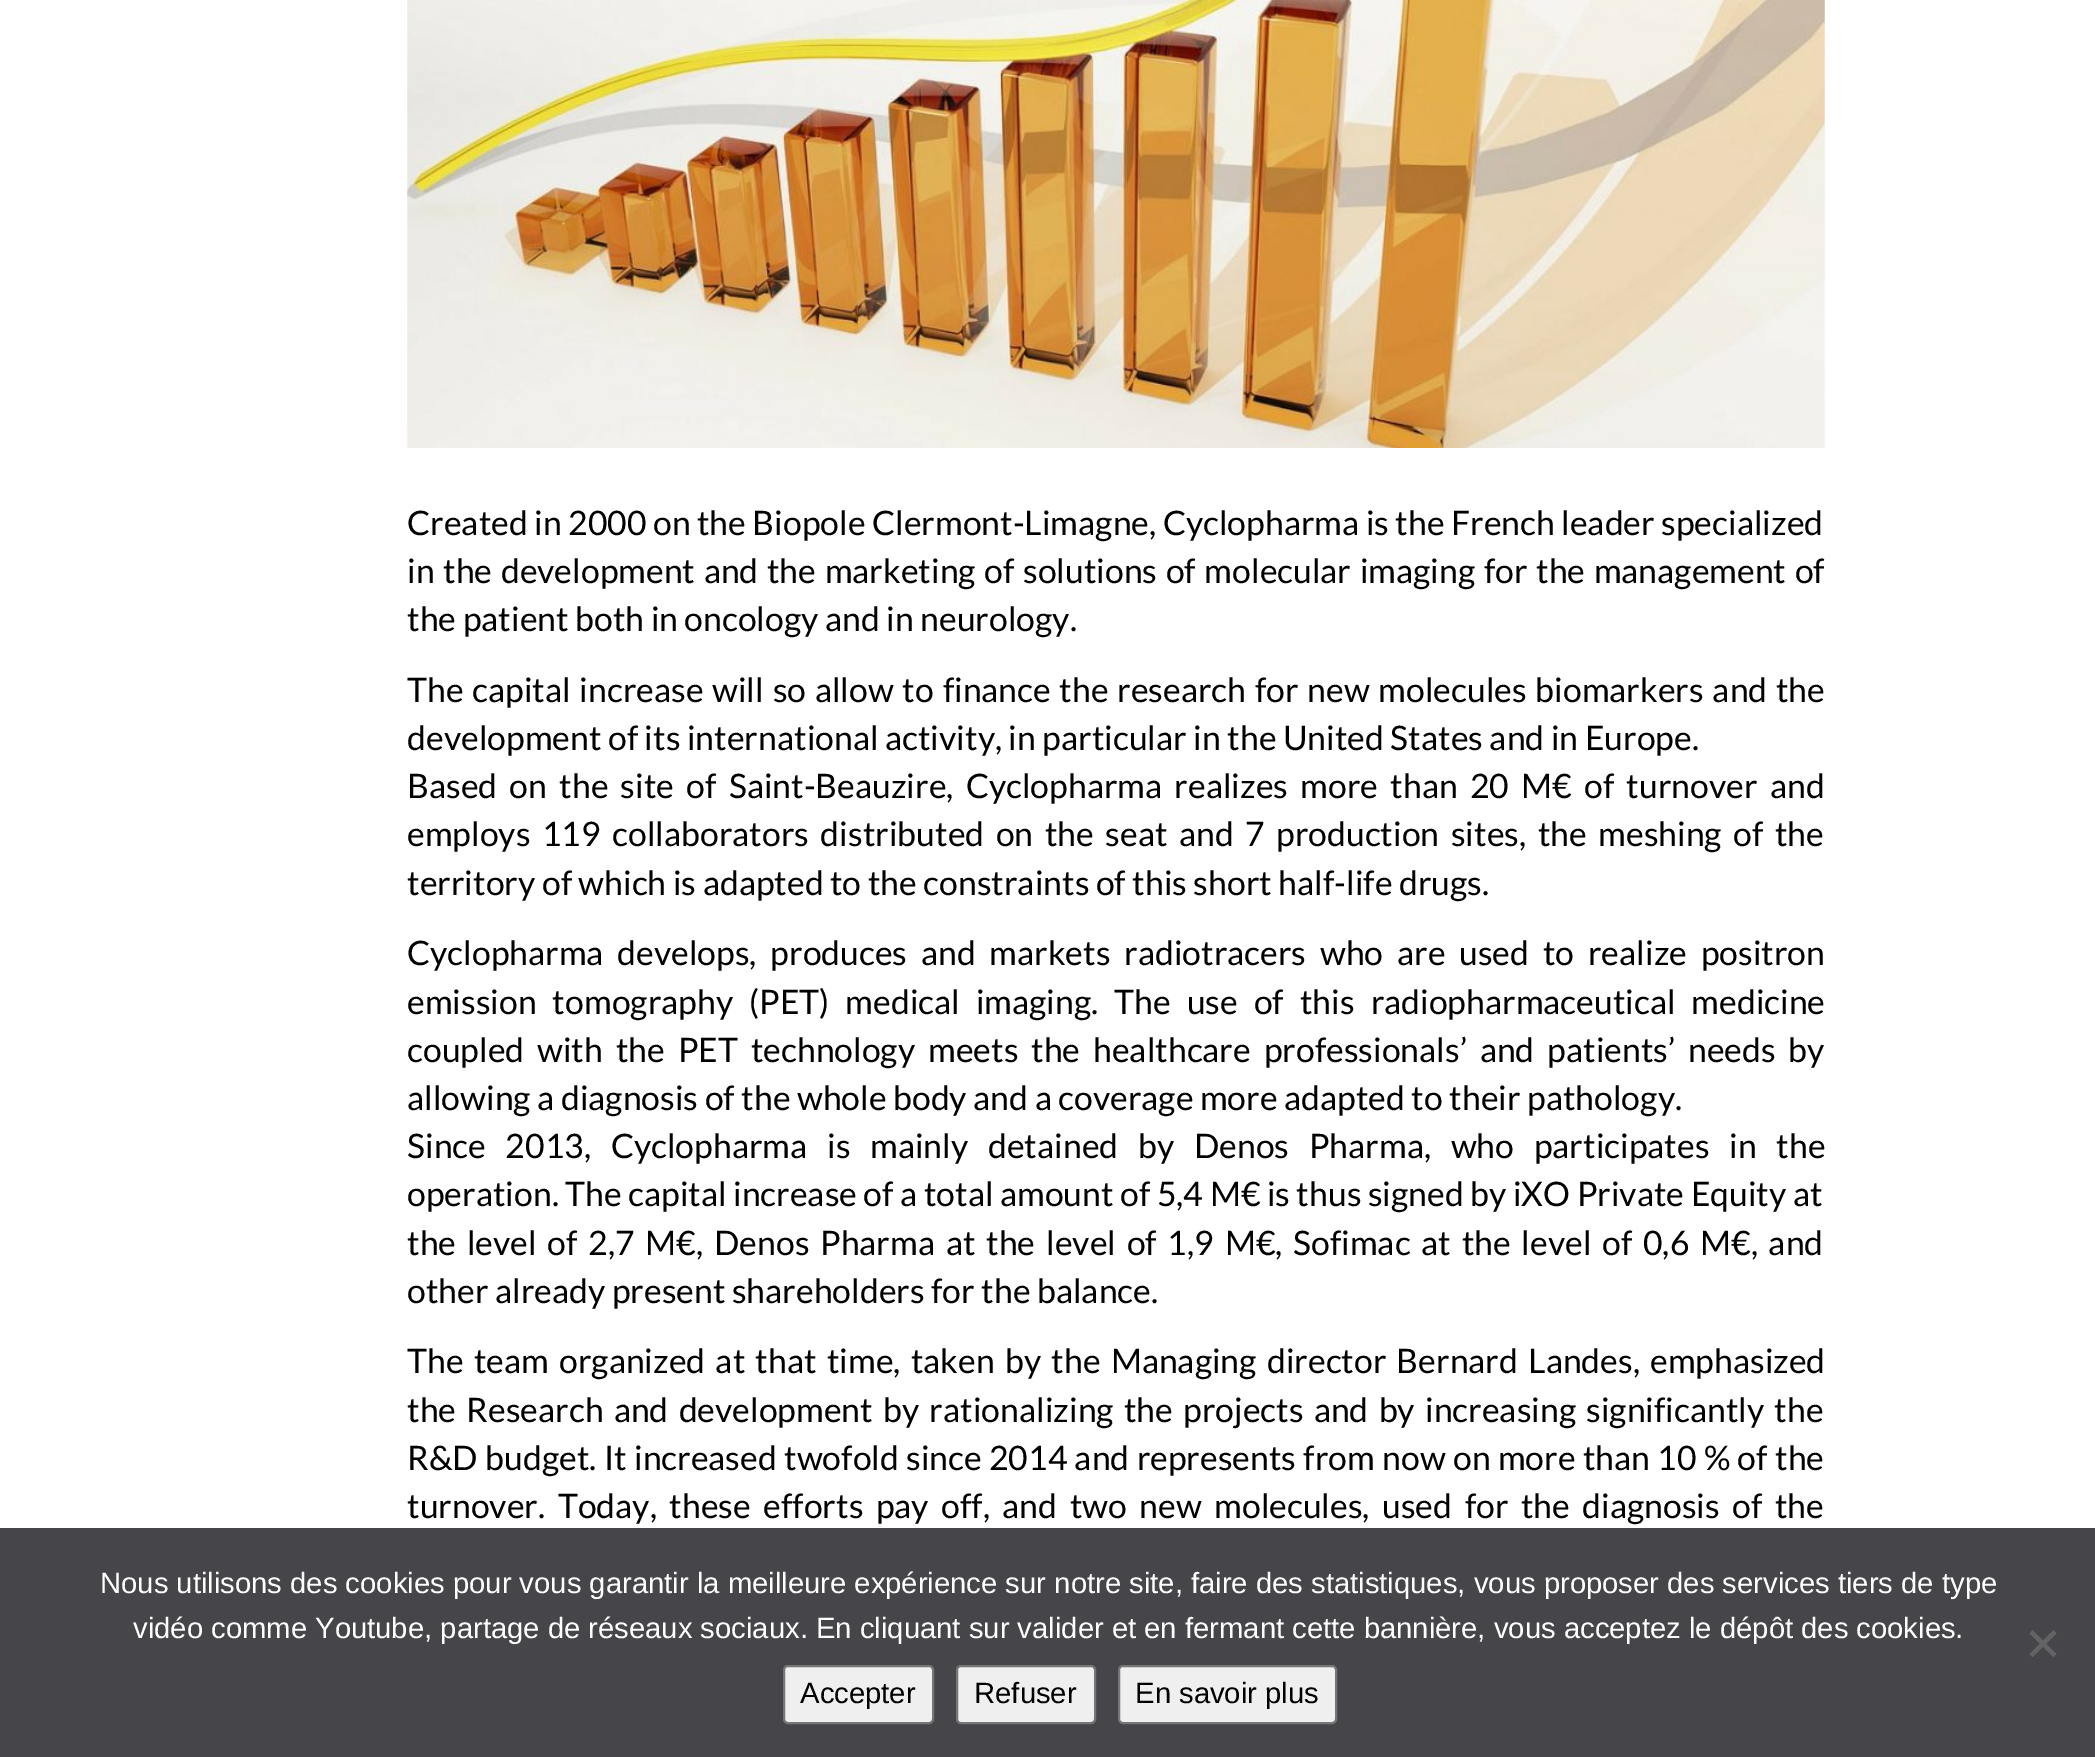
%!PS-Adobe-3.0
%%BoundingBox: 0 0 2095 1757
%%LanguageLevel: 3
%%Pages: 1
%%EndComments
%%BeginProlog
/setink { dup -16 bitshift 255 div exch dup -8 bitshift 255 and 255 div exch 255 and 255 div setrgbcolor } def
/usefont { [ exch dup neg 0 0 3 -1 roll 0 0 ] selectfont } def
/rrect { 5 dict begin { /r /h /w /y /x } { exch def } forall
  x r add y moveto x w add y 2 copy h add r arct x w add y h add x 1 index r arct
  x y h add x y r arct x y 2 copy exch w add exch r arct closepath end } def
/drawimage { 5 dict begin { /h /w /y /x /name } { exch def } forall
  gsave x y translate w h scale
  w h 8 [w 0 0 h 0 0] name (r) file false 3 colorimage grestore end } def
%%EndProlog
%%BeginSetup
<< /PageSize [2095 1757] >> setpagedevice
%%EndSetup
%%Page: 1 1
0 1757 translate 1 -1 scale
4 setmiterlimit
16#FFFFFF setink
0 0 2095 1757 rectfill
(img1.raw) 407 0 1418 448 drawimage
/Lato-Regular 33.75 usefont
16#020001 setink
407 535 moveto (Created in 2000 on the Biopole Clermont-Limagne, Cyclopharma is the French leader specialized) show
407 583 moveto 2.1 0 32 (in the development and the marketing of solutions of molecular imaging for the management of) widthshow
407 631 moveto (the patient both in oncology and in neurology.) show
407 702 moveto 2.25 0 32 (The capital increase will so allow to finance the research for new molecules biomarkers and the) widthshow
407 750 moveto (development of its international activity, in particular in the United States and in Europe.) show
407 798 moveto 5.75 0 32 (Based on the site of Saint-Beauzire, Cyclopharma realizes more than 20 M€ of turnover and) widthshow
407 846 moveto 5 0 32 (employs 119 collaborators distributed on the seat and 7 production sites, the meshing of the) widthshow
407 895 moveto (territory of which is adapted to the constraints of this short half-life drugs.) show
407 965 moveto 7.25 0 32 (Cyclopharma develops, produces and markets radiotracers who are used to realize positron) widthshow
407 1014 moveto 9.5 0 32 (emission tomography \(PET\) medical imaging. The use of this radiopharmaceutical medicine) widthshow
407 1062 moveto 6.4 0 32 (coupled with the PET technology meets the healthcare professionals’ and patients’ needs by) widthshow
407 1110 moveto (allowing a diagnosis of the whole body and a coverage more adapted to their pathology.) show
407 1158 moveto 13.25 0 32 (Since 2013, Cyclopharma is mainly detained by Denos Pharma, who participates in the) widthshow
407 1206 moveto (operation. The capital increase of a total amount of 5,4 M€ is thus signed by iXO Private Equity at) show
407 1255 moveto 4.25 0 32 (the level of 2,7 M€, Denos Pharma at the level of 1,9 M€, Sofimac at the level of 0,6 M€, and) widthshow
407 1303 moveto (other already present shareholders for the balance.) show
407 1373 moveto 3.75 0 32 (The team organized at that time, taken by the Managing director Bernard Landes, emphasized) widthshow
407 1422 moveto 3.75 0 32 (the Research and development by rationalizing the projects and by increasing significantly the) widthshow
407 1470 moveto 0.8 0 32 (R&D budget. It increased twofold since 2014 and represents from now on more than 10 % of the) widthshow
407 1518 moveto 6 0 32 (turnover. Today, these efforts pay off, and two new molecules, used for the diagnosis of the) widthshow
16#46464A setink
0 1528 2095 229 rectfill
/LiberationSans-Regular 29.25 usefont
16#FFFFFF setink
100 1593 moveto (Nous utilisons des cookies pour vous garantir la meilleure expérience sur notre site, faire des statistiques, vous proposer des services tiers de type) show
133 1638 moveto (vidéo comme Youtube, partage de réseaux sociaux. En cliquant sur valider et en fermant cette bannière, vous acceptez le dépôt des cookies.) show
16#636365 setink
2053.5 1630 moveto 2056.5 1633.5 lineto 2032.5 1657 lineto 2029.5 1654 lineto closepath fill
2029.5 1633.5 moveto 2032.5 1630 lineto 2056.5 1654 lineto 2053.5 1657 lineto closepath fill
16#EFEFEF setink
784 1666 149 57 4 rrect gsave fill grestore
16#767676 setink
2 setlinewidth
stroke
16#020001 setink
800 1703 moveto (Accepter) show
16#EFEFEF setink
957 1666 138 57 4 rrect gsave fill grestore
16#767676 setink
stroke
16#020001 setink
974 1703 moveto (Refuser) show
16#EFEFEF setink
1119 1666 217 57 4 rrect gsave fill grestore
16#767676 setink
stroke
16#020001 setink
1135 1703 moveto (En savoir plus) show
showpage
%%EOF
